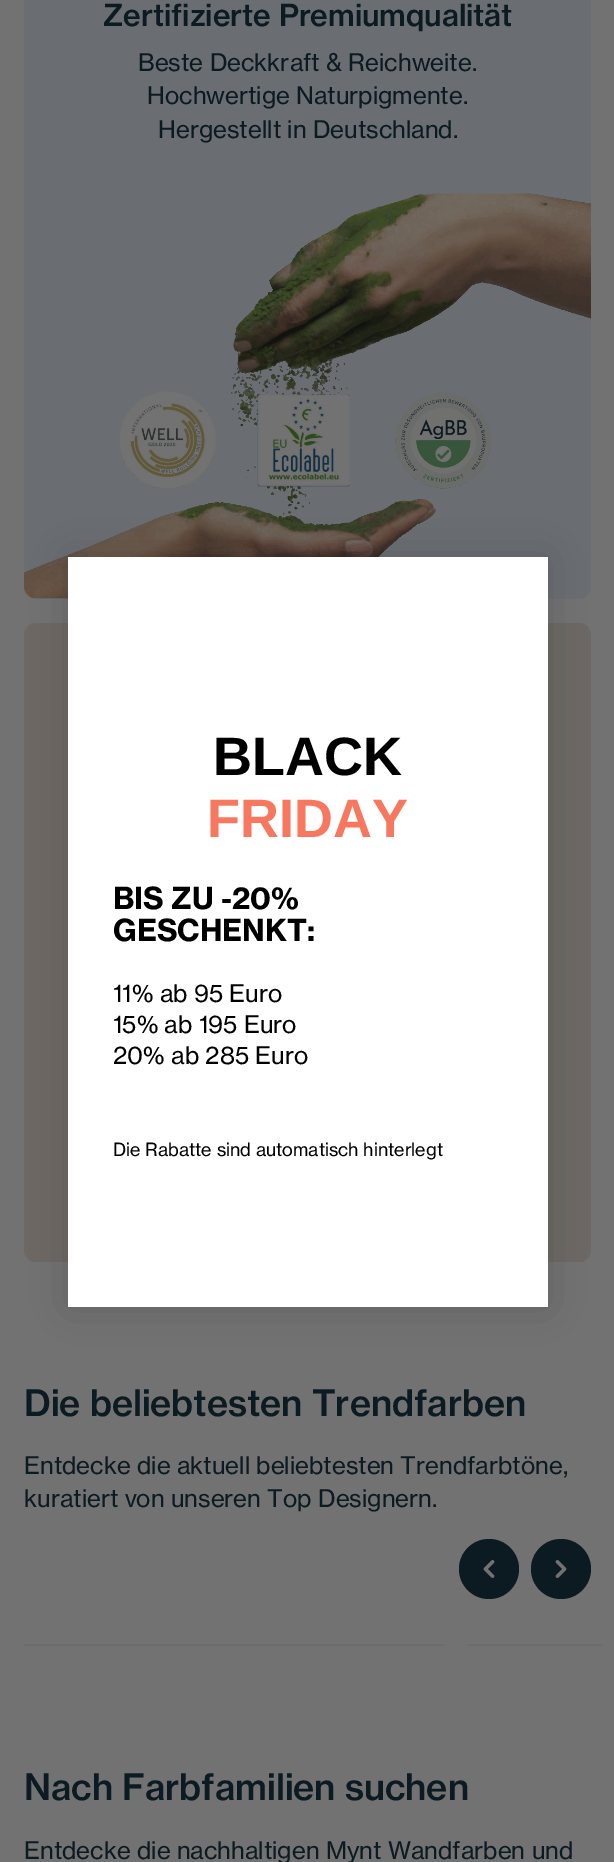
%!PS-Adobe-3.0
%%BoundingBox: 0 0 614 1862
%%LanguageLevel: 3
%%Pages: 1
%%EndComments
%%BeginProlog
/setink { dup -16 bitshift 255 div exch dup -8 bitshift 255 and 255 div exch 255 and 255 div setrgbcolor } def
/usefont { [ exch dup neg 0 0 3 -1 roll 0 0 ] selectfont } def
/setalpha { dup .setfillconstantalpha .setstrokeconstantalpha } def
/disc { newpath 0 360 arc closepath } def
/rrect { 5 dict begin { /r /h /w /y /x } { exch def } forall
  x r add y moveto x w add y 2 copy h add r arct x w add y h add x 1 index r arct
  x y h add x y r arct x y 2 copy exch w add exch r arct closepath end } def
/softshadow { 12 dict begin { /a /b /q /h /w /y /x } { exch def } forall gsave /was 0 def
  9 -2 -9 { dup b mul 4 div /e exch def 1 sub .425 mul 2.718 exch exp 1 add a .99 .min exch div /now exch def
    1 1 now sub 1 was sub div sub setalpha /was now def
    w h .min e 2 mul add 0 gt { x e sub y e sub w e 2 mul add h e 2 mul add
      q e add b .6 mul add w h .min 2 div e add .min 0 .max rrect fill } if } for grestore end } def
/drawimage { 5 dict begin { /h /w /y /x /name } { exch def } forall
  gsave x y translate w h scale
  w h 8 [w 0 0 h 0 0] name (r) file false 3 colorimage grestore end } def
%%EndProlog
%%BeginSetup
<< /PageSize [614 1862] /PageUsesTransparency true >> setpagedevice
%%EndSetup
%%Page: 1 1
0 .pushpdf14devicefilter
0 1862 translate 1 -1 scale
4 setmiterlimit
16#727272 setink
0 0 614 1862 rectfill
16#6A6E72 setink
24 -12 567 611 12 rrect fill
/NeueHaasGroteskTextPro-Medium 30 usefont
16#0C1A21 setink
103 26 moveto (Zertifizierte Premiumqualität) show
/NeueHaasGroteskTextPro-Regular 24 usefont
[
    [(Beste Deckkraft & Reichweite.) 138 71]
    [(Hochwertige Naturpigmente.) 147 104]
    [(Hergestellt in Deutschland.) 158 138]
] { aload pop moveto show } forall
(img1.raw) 24 193 567 406 drawimage
16#6D6864 setink
24 623 567 639 12 rrect fill
/NeueHaasGroteskTextPro-Medium 36 usefont
16#0C1A21 setink
24 1416 moveto (Die beliebtesten Trendfarben) show
/NeueHaasGroteskTextPro-Regular 24 usefont
24 1474 moveto (Entdecke die aktuell beliebtesten Trendfarbtöne,) show
24 1507 moveto (kuratiert von unseren Top Designern.) show
489 1569 30 disc fill
(img2.raw) 483 1560 12 18 drawimage
561 1569 30 disc fill
(img3.raw) 555 1560 12 18 drawimage
16#6C6C6C setink
24 1644 420 2 1 rrect fill
469 1644 moveto 603 1644 lineto 603 1646 lineto 469 1646 lineto 468.5 1646 468 1645.5 468 1645 curveto 468 1644.5 468.5 1644 469 1644 curveto closepath fill
/NeueHaasGroteskTextPro-Medium 36 usefont
16#0C1A21 setink
24 1800 moveto (Nach Farbfamilien suchen) show
/NeueHaasGroteskTextPro-Regular 24 usefont
24 1859 moveto (Entdecke die nachhaltigen Mynt Wandfarben und) show
16#000000 setink
68 557 480 750 0 22.5 0.15 softshadow
16#FFFFFF setink
68 557 480 750 rectfill
/LiberationSans-Bold 54 usefont
16#000000 setink
213 775 moveto (BLACK) show
16#F8785F setink
207 837 moveto (FRIDAY) show
/NeueHaasGroteskTextPro-Bold 30 usefont
16#000000 setink
113 909 moveto (BIS ZU -20%) show
113 941 moveto (GESCHENKT:) show
/NeueHaasGroteskTextPro-Regular 24 usefont
[
    [(11% ab 95 Euro) 113 1002]
    [(15% ab 195 Euro) 113 1033]
    [(20% ab 285 Euro) 113 1064]
] { aload pop moveto show } forall
/NeueHaasGroteskTextPro-Regular 18 usefont
113 1156 moveto (Die Rabatte sind automatisch hinterlegt) show
.poppdf14devicefilter showpage
%%EOF
